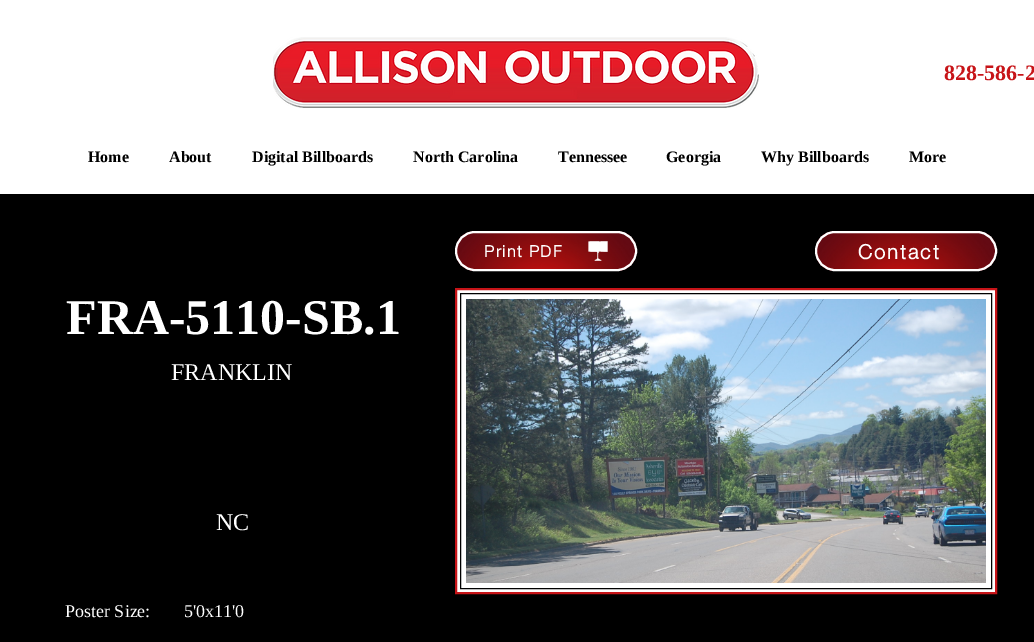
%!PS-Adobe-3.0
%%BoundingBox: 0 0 1034 642
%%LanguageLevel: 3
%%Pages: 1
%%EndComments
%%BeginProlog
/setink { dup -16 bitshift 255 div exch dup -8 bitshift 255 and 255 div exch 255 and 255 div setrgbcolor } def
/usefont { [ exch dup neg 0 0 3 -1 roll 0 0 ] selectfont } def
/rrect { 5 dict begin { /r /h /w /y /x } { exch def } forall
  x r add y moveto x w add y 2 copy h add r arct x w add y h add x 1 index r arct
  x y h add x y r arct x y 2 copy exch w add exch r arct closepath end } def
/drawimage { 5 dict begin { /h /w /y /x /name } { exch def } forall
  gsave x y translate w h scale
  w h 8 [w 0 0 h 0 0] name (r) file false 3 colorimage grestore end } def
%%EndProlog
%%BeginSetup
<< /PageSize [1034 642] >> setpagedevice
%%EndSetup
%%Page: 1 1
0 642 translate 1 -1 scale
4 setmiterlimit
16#FFFFFF setink
0 0 1034 642 rectfill
(img1.raw) 273 37 486 71 drawimage
/LiberationSerif-Bold 22 usefont
16#C71418 setink
944 80 moveto (828-586-2) show
/LiberationSerif-Bold 16 usefont
16#000000 setink
[
    [(Home) 88 162]
    [(About) 169 162]
    [(Digital Billboards) 252 162]
    [(North Carolina) 413 162]
    [(Tennessee) 558 162]
    [(Georgia) 666 162]
    [(Why Billboards) 761 162]
    [(More) 909 162]
] { aload pop moveto show } forall
0 194 1034 448 rectfill
(img2.raw) 457 231 178 40 drawimage
16#FFFFFF setink
2 setlinewidth
456 232 180 38 19 rrect stroke
/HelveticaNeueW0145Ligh-Bold 16 usefont
484 257 moveto 1.5 0 (Print PDF) ashow
(img3.raw) 588 241 20 20 drawimage
(img2.raw) 817 231 178 40 drawimage
816 232 180 38 19 rrect stroke
/HelveticaNeueW0145Ligh-Bold 20 usefont
858 259 moveto 2 0 (Contact) ashow
/LiberationSerif-Bold 50 usefont
66 334 moveto (FRA-5110-SB.1) show
456 289 moveto 996 289 lineto 996 593 lineto 456 593 lineto closepath gsave fill grestore
16#C71418 setink
stroke
(img4.raw) 466 299 520 284 drawimage
16#000000 setink
1 setlinewidth
460.5 293.5 531 295 rectstroke
/LiberationSerif-Regular 24 usefont
16#FFFFFF setink
171 380 moveto (FRANKLIN) show
216 530 moveto (NC) show
/LiberationSerif-Regular 18 usefont
65 617 moveto (Poster Size:) show
184 617 moveto (5'0x11'0) show
showpage
%%EOF
